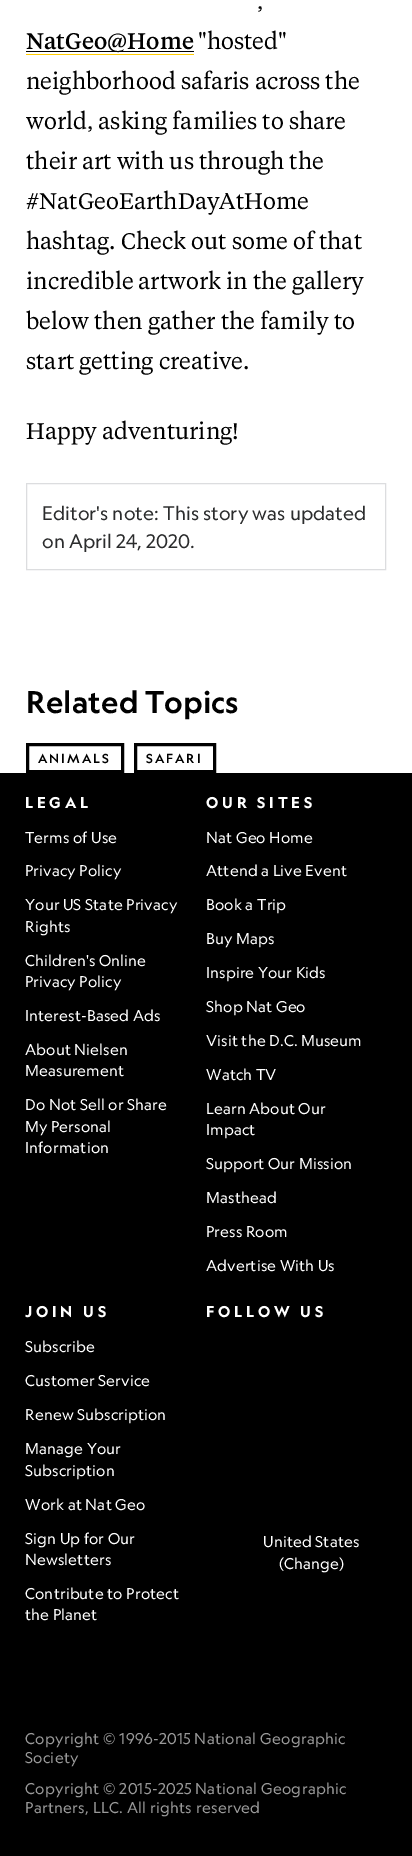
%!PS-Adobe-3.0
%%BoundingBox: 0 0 412 1856
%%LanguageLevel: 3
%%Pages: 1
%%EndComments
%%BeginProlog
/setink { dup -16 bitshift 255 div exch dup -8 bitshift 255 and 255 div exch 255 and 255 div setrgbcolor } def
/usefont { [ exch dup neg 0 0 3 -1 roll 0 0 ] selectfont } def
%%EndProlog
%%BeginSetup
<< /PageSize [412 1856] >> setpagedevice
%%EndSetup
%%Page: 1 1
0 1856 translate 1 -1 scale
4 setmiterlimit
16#FFFFFF setink
0 0 412 1856 rectfill
/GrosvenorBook-Regular 22.5 usefont
16#000000 setink
257 9 moveto (,) show
26 51 168 1 rectfill
/GrosvenorBook-Medium 22.5 usefont
26 49 moveto (NatGeo@Home) show
16#FFCC00 setink
26 54 168 1 rectfill
/GrosvenorBook-Regular 22.5 usefont
16#000000 setink
[
    [("hosted") 198 49]
    [(neighborhood safaris across the) 26 89]
    [(world, asking families to share) 26 129]
    [(their art with us through the) 26 169]
    [(#NatGeoEarthDayAtHome) 26 209]
    [(hashtag. Check out some of that) 26 249]
    [(incredible artwork in the gallery) 26 289]
    [(below then gather the family to) 26 329]
    [(start getting creative.) 26 369]
    [(Happy adventuring!) 26 439]
] { aload pop moveto show } forall
16#DCDDDF setink
26.5 483.5 359 86 rectstroke
/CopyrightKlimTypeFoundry-Regular 18.75 usefont
16#2B2C2D setink
42 520 moveto (Editor's note: This story was updated) show
42 548 moveto (on April 24, 2020.) show
/CopyrightKlimTypeFoundry-Medium 30 usefont
16#000000 setink
26 713 moveto 0.1 0 (Related Topics) ashow
3 setlinewidth
27.5 744.5 95 27 rectstroke
/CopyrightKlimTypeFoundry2-Medium 12.5 usefont
38 763 moveto 2 0 (ANIMALS) ashow
135.5 744.5 79 27 rectstroke
146 763 moveto 2 0 (SAFARI) ashow
0 773 412 1083 rectfill
/CopyrightKlimTypeFoundry-Bold 15 usefont
16#FFFFFF setink
25 808 moveto 3.75 0 (LEGAL) ashow
/CopyrightKlimTypeFoundry-Regular 15 usefont
25 843 moveto 0.1 0 (Terms of Use) ashow
25 876 moveto 0.1 0 (Privacy Policy) ashow
25 910 moveto 0.1 0 (Your US State Privacy) ashow
25 932 moveto 0.1 0 (Rights) ashow
25 966 moveto 0.1 0 (Children's Online) ashow
25 987 moveto 0.1 0 (Privacy Policy) ashow
25 1021 moveto 0.1 0 (Interest-Based Ads) ashow
25 1055 moveto 0.1 0 (About Nielsen) ashow
25 1076 moveto 0.1 0 (Measurement) ashow
25 1110 moveto 0.1 0 (Do Not Sell or Share) ashow
25 1132 moveto 0.1 0 (My Personal) ashow
25 1153 moveto 0.1 0 (Information) ashow
/CopyrightKlimTypeFoundry-Bold 15 usefont
206 808 moveto 3.75 0 (OUR SITES) ashow
/CopyrightKlimTypeFoundry-Regular 15 usefont
206 843 moveto 0.1 0 (Nat Geo Home) ashow
206 876 moveto 0.1 0 (Attend a Live Event) ashow
206 910 moveto 0.1 0 (Book a Trip) ashow
206 944 moveto 0.1 0 (Buy Maps) ashow
206 978 moveto 0.1 0 (Inspire Your Kids) ashow
206 1012 moveto 0.1 0 (Shop Nat Geo) ashow
206 1046 moveto 0.1 0 (Visit the D.C. Museum) ashow
206 1080 moveto 0.1 0 (Watch TV) ashow
206 1114 moveto 0.1 0 (Learn About Our) ashow
206 1135 moveto 0.1 0 (Impact) ashow
206 1169 moveto 0.1 0 (Support Our Mission) ashow
206 1203 moveto 0.1 0 (Masthead) ashow
206 1237 moveto 0.1 0 (Press Room) ashow
206 1271 moveto 0.1 0 (Advertise With Us) ashow
/CopyrightKlimTypeFoundry-Bold 15 usefont
25 1317 moveto 3.75 0 (JOIN US) ashow
/CopyrightKlimTypeFoundry-Regular 15 usefont
25 1352 moveto 0.1 0 (Subscribe) ashow
25 1386 moveto 0.1 0 (Customer Service) ashow
25 1420 moveto 0.1 0 (Renew Subscription) ashow
25 1454 moveto 0.1 0 (Manage Your) ashow
25 1476 moveto 0.1 0 (Subscription) ashow
25 1510 moveto 0.1 0 (Work at Nat Geo) ashow
25 1544 moveto 0.1 0 (Sign Up for Our) ashow
25 1565 moveto 0.1 0 (Newsletters) ashow
25 1599 moveto 0.1 0 (Contribute to Protect) ashow
25 1620 moveto 0.1 0 (the Planet) ashow
/CopyrightKlimTypeFoundry-Bold 15 usefont
206 1317 moveto 3.75 0 (FOLLOW US) ashow
/CopyrightKlimTypeFoundry-Regular 15 usefont
263 1547 moveto 0.1 0 (United States) ashow
279 1569 moveto 0.1 0 (\(Change\)) ashow
16#999999 setink
25 1744 moveto 0.25 0 (Copyright © 1996-2015 National Geographic) ashow
25 1763 moveto 0.25 0 (Society) ashow
25 1794 moveto 0.25 0 (Copyright © 2015-2025 National Geographic) ashow
25 1813 moveto 0.25 0 (Partners, LLC. All rights reserved) ashow
showpage
%%EOF
